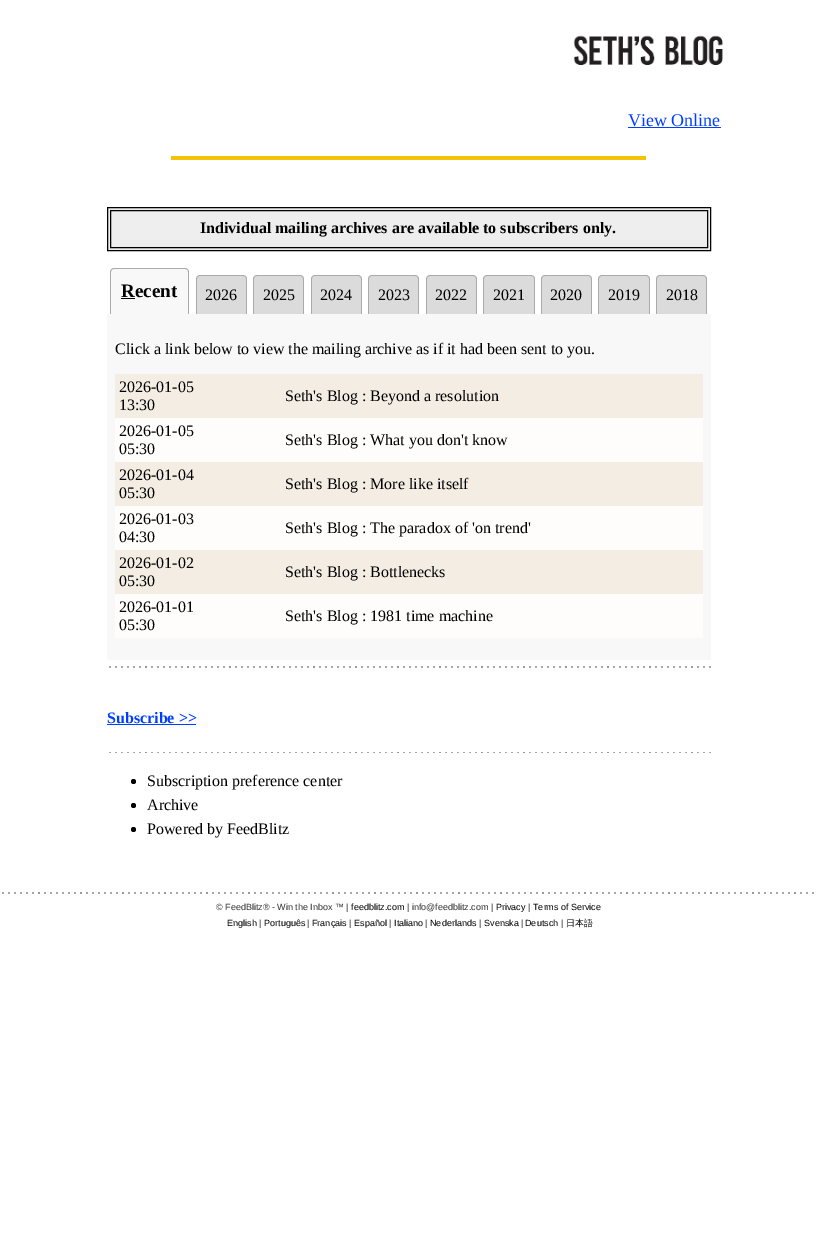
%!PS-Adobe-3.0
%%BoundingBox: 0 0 817 1240
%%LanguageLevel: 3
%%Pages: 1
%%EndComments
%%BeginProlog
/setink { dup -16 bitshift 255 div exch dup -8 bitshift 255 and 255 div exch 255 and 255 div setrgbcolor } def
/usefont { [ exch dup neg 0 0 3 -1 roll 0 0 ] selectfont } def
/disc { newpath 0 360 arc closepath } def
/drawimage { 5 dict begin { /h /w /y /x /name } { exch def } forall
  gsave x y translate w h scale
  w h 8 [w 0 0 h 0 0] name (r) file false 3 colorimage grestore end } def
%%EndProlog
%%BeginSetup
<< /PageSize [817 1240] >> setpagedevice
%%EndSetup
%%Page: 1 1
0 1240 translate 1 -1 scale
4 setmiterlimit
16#FFFFFF setink
0 0 817 1240 rectfill
(img1.raw) 573 35 150 30 drawimage
/LiberationSerif-Regular 18 usefont
16#003EFF setink
628 126 moveto (View Online) show
628 127 93 1 rectfill
16#F5C20A setink
171 156 475 4 rectfill
16#EEEEEE setink
107.5 207.5 moveto 710.5 207.5 lineto 710.5 250.5 lineto 107.5 250.5 lineto closepath gsave fill grestore
16#000000 setink
stroke
110.5 210.5 597 37 rectstroke
/LiberationSerif-Bold 16 usefont
200 233 moveto (Individual mailing archives are available to subscribers only.) show
16#F8F8F8 setink
114 269 moveto 185 269 lineto 186.5 269 188 270.5 188 272 curveto 188 314 lineto 111 314 lineto 111 272 lineto 111 270.5 112.5 269 114 269 curveto closepath fill
16#AAAAAA setink
114 268 moveto 185 268 lineto 187 268 189 270 189 272 curveto 189 314 lineto 110 314 lineto 110 272 lineto 110 270 112 268 114 268 curveto closepath 114 269 moveto 185 269 lineto 187 269 188 270 188 272 curveto 188 314 lineto 111 314 lineto 111 272 lineto 111 270 112 269 114 269 curveto closepath eofill
/LiberationSerif-Bold 19 usefont
16#000000 setink
121 297 moveto (Recent) show
121 298 14 1 rectfill
16#DBDBDB setink
200 276 moveto 243 276 lineto 244.5 276 246 277.5 246 279 curveto 246 314 lineto 197 314 lineto 197 279 lineto 197 277.5 198.5 276 200 276 curveto closepath fill
16#AAAAAA setink
200 275 moveto 243 275 lineto 245 275 247 277 247 279 curveto 247 314 lineto 196 314 lineto 196 279 lineto 196 277 198 275 200 275 curveto closepath 200 276 moveto 243 276 lineto 245 276 246 277 246 279 curveto 246 314 lineto 197 314 lineto 197 279 lineto 197 277 198 276 200 276 curveto closepath eofill
/LiberationSerif-Regular 16 usefont
16#000000 setink
205 300 moveto (2026) show
16#DBDBDB setink
257 276 moveto 300 276 lineto 301.5 276 303 277.5 303 279 curveto 303 314 lineto 254 314 lineto 254 279 lineto 254 277.5 255.5 276 257 276 curveto closepath fill
16#AAAAAA setink
257 275 moveto 300 275 lineto 302 275 304 277 304 279 curveto 304 314 lineto 253 314 lineto 253 279 lineto 253 277 255 275 257 275 curveto closepath 257 276 moveto 300 276 lineto 302 276 303 277 303 279 curveto 303 314 lineto 254 314 lineto 254 279 lineto 254 277 255 276 257 276 curveto closepath eofill
16#000000 setink
263 300 moveto (2025) show
16#DBDBDB setink
315 276 moveto 358 276 lineto 359.5 276 361 277.5 361 279 curveto 361 314 lineto 312 314 lineto 312 279 lineto 312 277.5 313.5 276 315 276 curveto closepath fill
16#AAAAAA setink
315 275 moveto 358 275 lineto 360 275 362 277 362 279 curveto 362 314 lineto 311 314 lineto 311 279 lineto 311 277 313 275 315 275 curveto closepath 315 276 moveto 358 276 lineto 360 276 361 277 361 279 curveto 361 314 lineto 312 314 lineto 312 279 lineto 312 277 313 276 315 276 curveto closepath eofill
16#000000 setink
320 300 moveto (2024) show
16#DBDBDB setink
372 276 moveto 415 276 lineto 416.5 276 418 277.5 418 279 curveto 418 314 lineto 369 314 lineto 369 279 lineto 369 277.5 370.5 276 372 276 curveto closepath fill
16#AAAAAA setink
372 275 moveto 415 275 lineto 417 275 419 277 419 279 curveto 419 314 lineto 368 314 lineto 368 279 lineto 368 277 370 275 372 275 curveto closepath 372 276 moveto 415 276 lineto 417 276 418 277 418 279 curveto 418 314 lineto 369 314 lineto 369 279 lineto 369 277 370 276 372 276 curveto closepath eofill
16#000000 setink
378 300 moveto (2023) show
16#DBDBDB setink
430 276 moveto 473 276 lineto 474.5 276 476 277.5 476 279 curveto 476 314 lineto 427 314 lineto 427 279 lineto 427 277.5 428.5 276 430 276 curveto closepath fill
16#AAAAAA setink
430 275 moveto 473 275 lineto 475 275 477 277 477 279 curveto 477 314 lineto 426 314 lineto 426 279 lineto 426 277 428 275 430 275 curveto closepath 430 276 moveto 473 276 lineto 475 276 476 277 476 279 curveto 476 314 lineto 427 314 lineto 427 279 lineto 427 277 428 276 430 276 curveto closepath eofill
16#000000 setink
435 300 moveto (2022) show
16#DBDBDB setink
487 276 moveto 531 276 lineto 532.5 276 534 277.5 534 279 curveto 534 314 lineto 484 314 lineto 484 279 lineto 484 277.5 485.5 276 487 276 curveto closepath fill
16#AAAAAA setink
487 275 moveto 531 275 lineto 533 275 535 277 535 279 curveto 535 314 lineto 483 314 lineto 483 279 lineto 483 277 485 275 487 275 curveto closepath 487 276 moveto 531 276 lineto 533 276 534 277 534 279 curveto 534 314 lineto 484 314 lineto 484 279 lineto 484 277 485 276 487 276 curveto closepath eofill
16#000000 setink
493 300 moveto (2021) show
16#DBDBDB setink
545 276 moveto 588 276 lineto 589.5 276 591 277.5 591 279 curveto 591 314 lineto 542 314 lineto 542 279 lineto 542 277.5 543.5 276 545 276 curveto closepath fill
16#AAAAAA setink
545 275 moveto 588 275 lineto 590 275 592 277 592 279 curveto 592 314 lineto 541 314 lineto 541 279 lineto 541 277 543 275 545 275 curveto closepath 545 276 moveto 588 276 lineto 590 276 591 277 591 279 curveto 591 314 lineto 542 314 lineto 542 279 lineto 542 277 543 276 545 276 curveto closepath eofill
16#000000 setink
550 300 moveto (2020) show
16#DBDBDB setink
602 276 moveto 646 276 lineto 647.5 276 649 277.5 649 279 curveto 649 314 lineto 599 314 lineto 599 279 lineto 599 277.5 600.5 276 602 276 curveto closepath fill
16#AAAAAA setink
602 275 moveto 646 275 lineto 648 275 650 277 650 279 curveto 650 314 lineto 598 314 lineto 598 279 lineto 598 277 600 275 602 275 curveto closepath 602 276 moveto 646 276 lineto 648 276 649 277 649 279 curveto 649 314 lineto 599 314 lineto 599 279 lineto 599 277 600 276 602 276 curveto closepath eofill
16#000000 setink
608 300 moveto (2019) show
16#DBDBDB setink
660 276 moveto 703 276 lineto 704.5 276 706 277.5 706 279 curveto 706 314 lineto 657 314 lineto 657 279 lineto 657 277.5 658.5 276 660 276 curveto closepath fill
16#AAAAAA setink
660 275 moveto 703 275 lineto 705 275 707 277 707 279 curveto 707 314 lineto 656 314 lineto 656 279 lineto 656 277 658 275 660 275 curveto closepath 660 276 moveto 703 276 lineto 705 276 706 277 706 279 curveto 706 314 lineto 657 314 lineto 657 279 lineto 657 277 658 276 660 276 curveto closepath eofill
16#000000 setink
666 300 moveto (2018) show
16#F8F8F8 setink
107 314 604 346 rectfill
16#000000 setink
115 354 moveto (Click a link below to view the mailing archive as if it had been sent to you.) show
16#F3EDE4 setink
115 374 588 44 rectfill
16#000000 setink
[
    [(2026-01-05) 119 392]
    [(13:30) 119 410]
    [(Seth's Blog : Beyond a resolution) 285 401]
] { aload pop moveto show } forall
16#FFFDFC setink
115 418 588 44 rectfill
16#000000 setink
[
    [(2026-01-05) 119 436]
    [(05:30) 119 454]
    [(Seth's Blog : What you don't know) 285 445]
] { aload pop moveto show } forall
16#F3EDE4 setink
115 462 588 44 rectfill
16#000000 setink
[
    [(2026-01-04) 119 480]
    [(05:30) 119 498]
    [(Seth's Blog : More like itself) 285 489]
] { aload pop moveto show } forall
16#FFFDFC setink
115 506 588 44 rectfill
16#000000 setink
[
    [(2026-01-03) 119 524]
    [(04:30) 119 542]
    [(Seth's Blog : The paradox of 'on trend') 285 533]
] { aload pop moveto show } forall
16#F3EDE4 setink
115 550 588 44 rectfill
16#000000 setink
[
    [(2026-01-02) 119 568]
    [(05:30) 119 586]
    [(Seth's Blog : Bottlenecks) 285 577]
] { aload pop moveto show } forall
16#FFFDFC setink
115 594 588 44 rectfill
16#000000 setink
[
    [(2026-01-01) 119 612]
    [(05:30) 119 630]
    [(Seth's Blog : 1981 time machine) 285 621]
] { aload pop moveto show } forall
(img2.raw) 109 666 602 2 drawimage
/LiberationSerif-Bold 16 usefont
16#003EFF setink
107 723 moveto (Subscribe >>) show
107 724 89 1 rectfill
(img3.raw) 109 752 602 1 drawimage
16#000000 setink
133.5 781.5 2.5 disc fill
/LiberationSerif-Regular 16 usefont
147 786 moveto (Subscription preference center) show
133.5 805.5 2.5 disc fill
147 810 moveto (Archive) show
133.5 829.5 2.5 disc fill
147 834 moveto (Powered by FeedBlitz) show
(img4.raw) 2 892 812 2 drawimage
/LiberationSans-Regular 9 usefont
16#333333 setink
216 910 moveto (© FeedBlitz® - Win the Inbox ™ |) show
16#000000 setink
351 910 moveto (feedblitz.com) show
16#333333 setink
407 910 moveto (| info@feedblitz.com |) show
16#000000 setink
496 910 moveto (Privacy) show
16#333333 setink
528 910 moveto (|) show
16#000000 setink
533 910 moveto (Terms of Service) show
227 926 moveto (English) show
16#333333 setink
259 926 moveto (|) show
16#000000 setink
264 926 moveto (Português) show
16#333333 setink
307 926 moveto (|) show
16#000000 setink
312 926 moveto (Français) show
16#333333 setink
349 926 moveto (|) show
16#000000 setink
354 926 moveto (Español) show
16#333333 setink
389 926 moveto (|) show
16#000000 setink
394 926 moveto (Italiano) show
16#333333 setink
425 926 moveto (|) show
16#000000 setink
430 926 moveto (Nederlands) show
16#333333 setink
479 926 moveto (|) show
16#000000 setink
484 926 moveto (Svenska) show
16#333333 setink
521 926 moveto (|) show
16#000000 setink
525 926 moveto (Deutsch) show
16#333333 setink
561 926 moveto (|) show
/WenQuanYiZenHei-Medium 9 usefont
16#000000 setink
566 926 moveto (日本語) show
showpage
%%EOF
